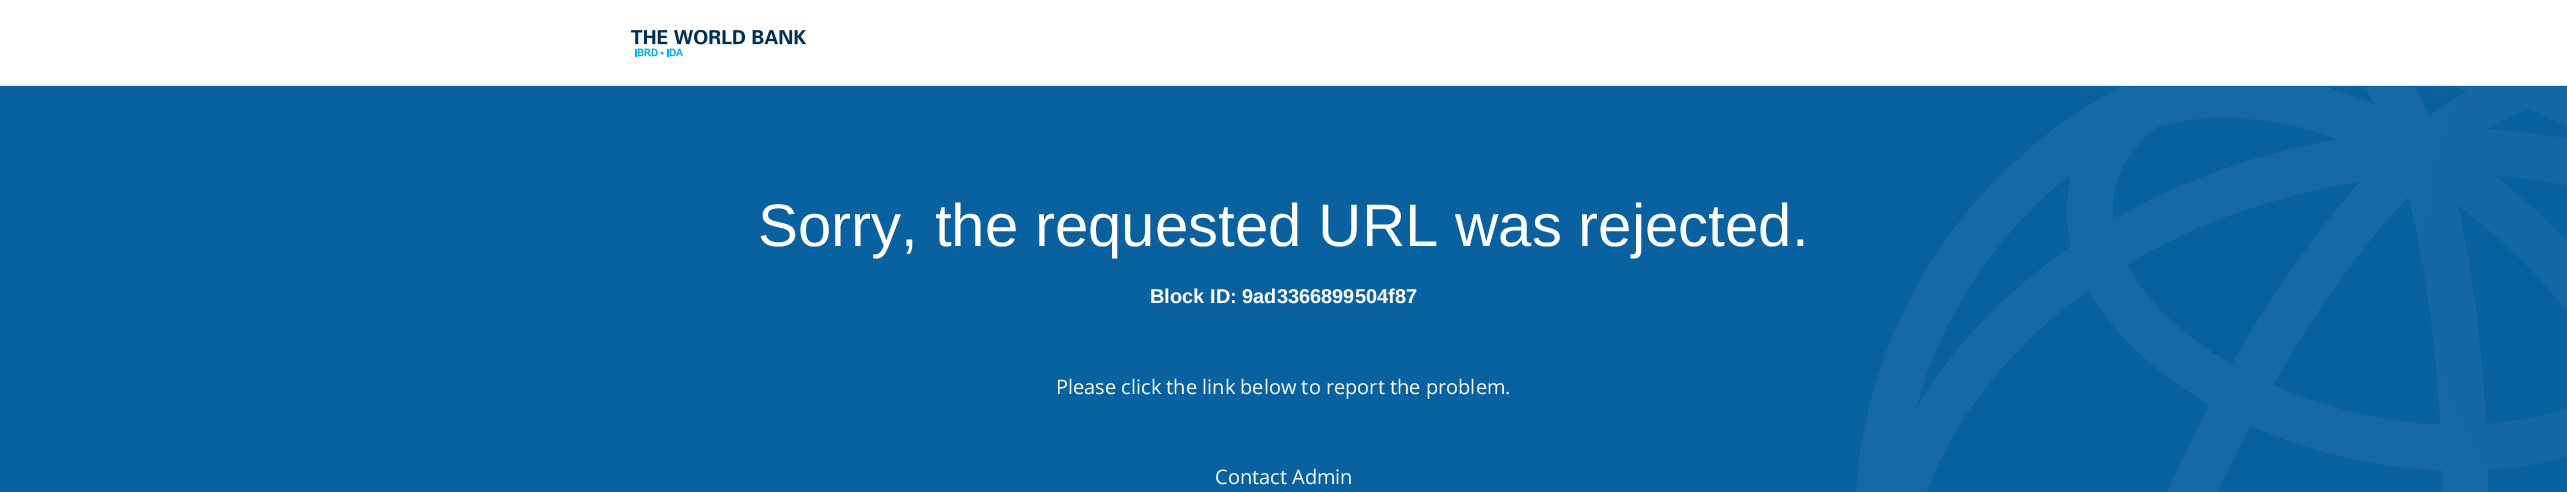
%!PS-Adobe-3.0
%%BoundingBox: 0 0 2567 492
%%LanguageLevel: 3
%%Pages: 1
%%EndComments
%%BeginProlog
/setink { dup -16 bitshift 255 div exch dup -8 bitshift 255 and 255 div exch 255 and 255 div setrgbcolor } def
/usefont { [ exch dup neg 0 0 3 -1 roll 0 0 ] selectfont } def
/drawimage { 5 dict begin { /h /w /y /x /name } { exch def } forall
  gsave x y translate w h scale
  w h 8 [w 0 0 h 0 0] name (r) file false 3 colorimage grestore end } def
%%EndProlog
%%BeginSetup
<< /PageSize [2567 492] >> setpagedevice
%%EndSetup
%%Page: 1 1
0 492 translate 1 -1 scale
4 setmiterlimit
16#FFFFFF setink
0 0 2567 492 rectfill
16#E5E5E5 setink
0 85 2567 1 rectfill
(img1.raw) 631 29 176 28 drawimage
16#0961A0 setink
0 86 2567 406 rectfill
/LiberationSans-Regular 60 usefont
16#FFFFFF setink
758 246 moveto (Sorry, the requested URL was rejected.) show
/LiberationSans-Bold 20 usefont
1150 303 moveto (Block ID: 9ad3366899504f87) show
/OpenSans-Regular 20 usefont
1056 394 moveto (Please click the link below to report the problem.) show
1215 484 moveto (Contact Admin) show
(img2.raw) 1856 87 711 405 drawimage
showpage
%%EOF
